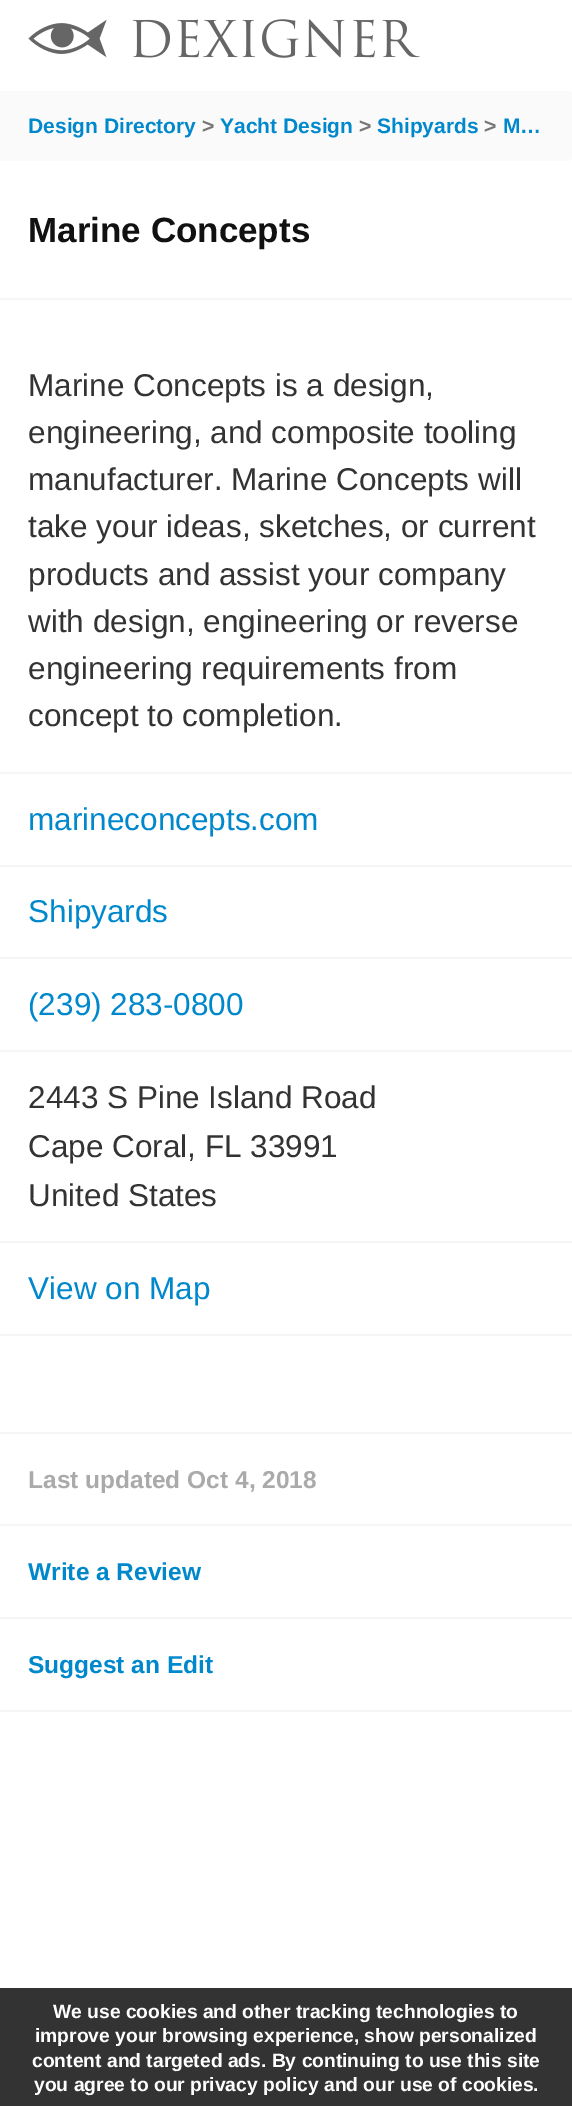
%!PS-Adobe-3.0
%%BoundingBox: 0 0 572 2106
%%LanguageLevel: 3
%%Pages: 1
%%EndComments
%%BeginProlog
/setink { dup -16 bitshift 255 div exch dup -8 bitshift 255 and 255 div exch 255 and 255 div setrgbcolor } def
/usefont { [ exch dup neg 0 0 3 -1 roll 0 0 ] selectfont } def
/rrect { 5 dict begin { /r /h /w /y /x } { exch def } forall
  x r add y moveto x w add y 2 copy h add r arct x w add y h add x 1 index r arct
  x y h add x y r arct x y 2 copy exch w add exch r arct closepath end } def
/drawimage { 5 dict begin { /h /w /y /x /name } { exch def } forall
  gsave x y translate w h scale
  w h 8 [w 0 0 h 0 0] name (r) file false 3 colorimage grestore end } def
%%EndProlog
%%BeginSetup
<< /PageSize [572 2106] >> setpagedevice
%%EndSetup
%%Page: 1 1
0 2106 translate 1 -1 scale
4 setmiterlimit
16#FFFFFF setink
0 0 572 2106 rectfill
(img1.raw) 28 19 392 39 drawimage
16#FAFAFA setink
0 91 572 70 4 rrect fill
/LiberationSans-Bold 21 usefont
16#0088CC setink
28 133 moveto (Design Directory) show
16#777777 setink
202 133 moveto (>) show
16#0088CC setink
220 133 moveto (Yacht Design) show
16#777777 setink
359 133 moveto (>) show
16#0088CC setink
377 133 moveto (Shipyards) show
16#777777 setink
484 133 moveto (>) show
16#0088CC setink
503 133 moveto (M…) show
/LiberationSans-Bold 35 usefont
16#111111 setink
28 242 moveto (Marine Concepts) show
16#F6F6F6 setink
0 298 572 2 rectfill
/LiberationSans-Regular 31.5 usefont
16#333333 setink
[
    [(Marine Concepts is a design,) 28 396]
    [(engineering, and composite tooling) 28 443]
    [(manufacturer. Marine Concepts will) 28 490]
    [(take your ideas, sketches, or current) 28 537]
    [(products and assist your company) 28 585]
    [(with design, engineering or reverse) 28 632]
    [(engineering requirements from) 28 679]
    [(concept to completion.) 28 726]
] { aload pop moveto show } forall
16#F6F6F6 setink
0 772 572 2 rectfill
16#0088CC setink
28 830 moveto (marineconcepts.com) show
16#F6F6F6 setink
0 865 572 2 rectfill
16#0088CC setink
28 922 moveto (Shipyards) show
16#F6F6F6 setink
0 957 572 2 rectfill
16#0088CC setink
28 1015 moveto (\(239\) 283-0800) show
16#F6F6F6 setink
0 1050 572 2 rectfill
16#333333 setink
[
    [(2443 S Pine Island Road) 28 1108]
    [(Cape Coral, FL 33991) 28 1157]
    [(United States) 28 1206]
] { aload pop moveto show } forall
16#F6F6F6 setink
0 1241 572 2 rectfill
16#0088CC setink
28 1299 moveto (View on Map) show
16#F6F6F6 setink
0 1334 572 2 rectfill
0 1432 572 2 rectfill
/LiberationSans-Bold 24.5 usefont
16#AAAAAA setink
28 1488 moveto (Last updated Oct 4, 2018) show
16#F6F6F6 setink
0 1524 572 2 rectfill
16#0088CC setink
28 1580 moveto (Write a Review) show
16#F6F6F6 setink
0 1617 572 2 rectfill
16#0088CC setink
28 1673 moveto (Suggest an Edit) show
16#F6F6F6 setink
0 1710 572 2 rectfill
16#333333 setink
0 1988 572 118 rectfill
/LiberationSans-Bold 19.25 usefont
16#FFFFFF setink
[
    [(We use cookies and other tracking technologies to) 53 2018]
    [(improve your browsing experience, show personalized) 35 2042]
    [(content and targeted ads. By continuing to use this site) 32 2067]
    [(you agree to our privacy policy and our use of cookies.) 34 2091]
] { aload pop moveto show } forall
showpage
%%EOF
